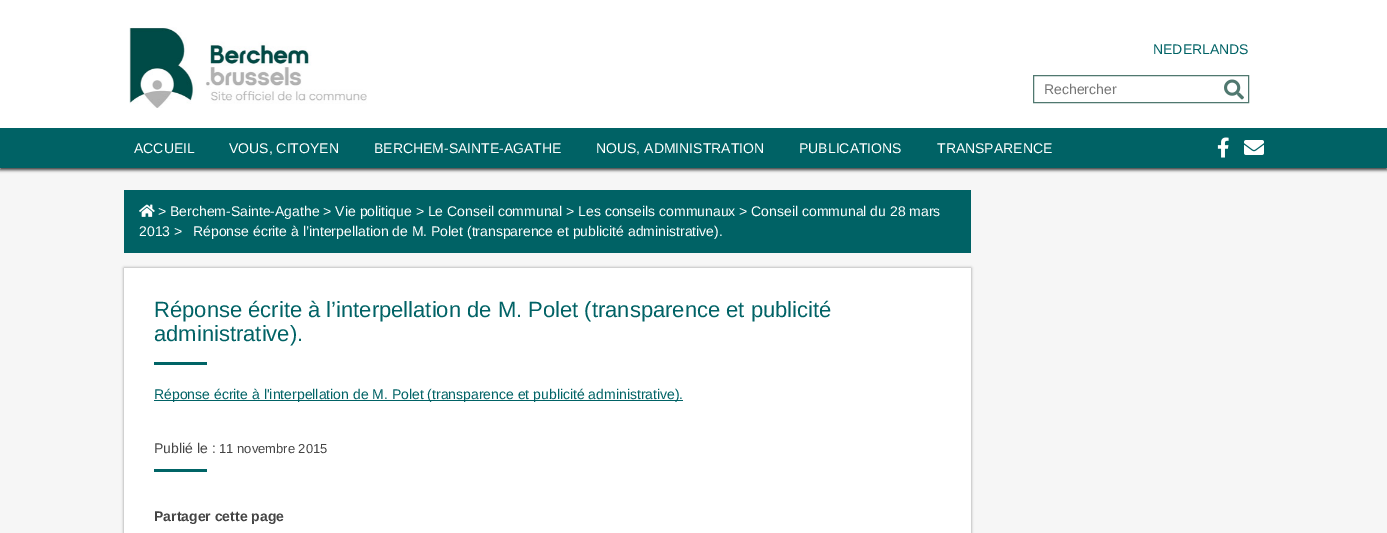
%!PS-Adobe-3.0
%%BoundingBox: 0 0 1387 533
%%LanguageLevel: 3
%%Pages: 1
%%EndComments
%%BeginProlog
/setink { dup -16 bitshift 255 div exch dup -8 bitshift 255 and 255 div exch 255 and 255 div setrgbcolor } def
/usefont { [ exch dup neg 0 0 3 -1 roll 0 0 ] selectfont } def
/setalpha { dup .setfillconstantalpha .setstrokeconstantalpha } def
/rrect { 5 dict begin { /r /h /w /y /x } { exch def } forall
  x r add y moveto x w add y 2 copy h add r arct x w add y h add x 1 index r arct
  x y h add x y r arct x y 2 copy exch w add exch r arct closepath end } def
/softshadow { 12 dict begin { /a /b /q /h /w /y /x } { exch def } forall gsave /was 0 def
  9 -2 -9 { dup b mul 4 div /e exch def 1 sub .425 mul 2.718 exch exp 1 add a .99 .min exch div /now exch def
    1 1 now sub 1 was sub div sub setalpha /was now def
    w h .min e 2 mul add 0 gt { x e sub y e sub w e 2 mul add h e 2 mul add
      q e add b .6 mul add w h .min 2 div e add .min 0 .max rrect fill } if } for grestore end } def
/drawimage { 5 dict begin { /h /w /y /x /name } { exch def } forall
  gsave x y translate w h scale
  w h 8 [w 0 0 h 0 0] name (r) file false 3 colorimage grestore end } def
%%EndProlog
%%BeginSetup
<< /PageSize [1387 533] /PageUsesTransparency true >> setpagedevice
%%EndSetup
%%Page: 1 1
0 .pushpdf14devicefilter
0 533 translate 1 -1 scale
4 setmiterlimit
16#F6F6F6 setink
0 0 1387 533 rectfill
16#444444 setink
0 2 1387 168 0 1.5 1 softshadow
16#FFFFFF setink
0 0 1387 128 rectfill
(img1.raw) 129 27 238 81 drawimage
/LiberationSans-Regular 14 usefont
16#006265 setink
1153 54 moveto (NEDERLANDS) show
16#50786F setink
1033.5 75.5 215 27 rectstroke
16#757575 setink
1044 94 moveto (Rechercher) show
(img2.raw) 1224 79 20 21 drawimage
16#006265 setink
0 128 1387 40 rectfill
16#FFFFFF setink
[
    [(ACCUEIL) 134 153]
    [(VOUS, CITOYEN) 229 153]
    [(BERCHEM-SAINTE-AGATHE) 374 153]
    [(NOUS, ADMINISTRATION) 596 153]
    [(PUBLICATIONS) 799 153]
    [(TRANSPARENCE) 937 153]
] { aload pop moveto show } forall
(img3.raw) 1217 137 12 21 drawimage
(img4.raw) 1244 140 20 15 drawimage
16#006265 setink
124 190 847 63 rectfill
(img5.raw) 139 204 16 13 drawimage
16#FFFFFF setink
[
    [(> Berchem-Sainte-Agathe > Vie politique > Le Conseil communal > Les conseils communaux > Conseil communal du 28 mars) 158 216]
    [(2013 >) 139 236]
    [(Réponse écrite à l’interpellation de M. Polet \(transparence et publicité administrative\).) 193 236]
] { aload pop moveto show } forall
16#999999 setink
124 268 847 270 0 1.5 1 softshadow
16#FFFFFF setink
124 268 847 265 rectfill
/LiberationSans-Regular 22 usefont
16#006265 setink
154 317 moveto (Réponse écrite à l’interpellation de M. Polet \(transparence et publicité) show
154 341 moveto (administrative\).) show
16#006466 setink
154 362 53 3 rectfill
16#006265 setink
154 400 529 1 rectfill
/LiberationSans-Regular 14 usefont
154 399 moveto (Réponse écrite à l'interpellation de M. Polet \(transparence et publicité administrative\).) show
16#444444 setink
154 453 moveto (Publié le :) show
/LiberationSans-Regular 13 usefont
219 453 moveto (11 novembre 2015) show
16#006466 setink
154 469 53 3 rectfill
/LiberationSans-Bold 14 usefont
16#444444 setink
154 521 moveto (Partager cette page) show
.poppdf14devicefilter showpage
%%EOF
